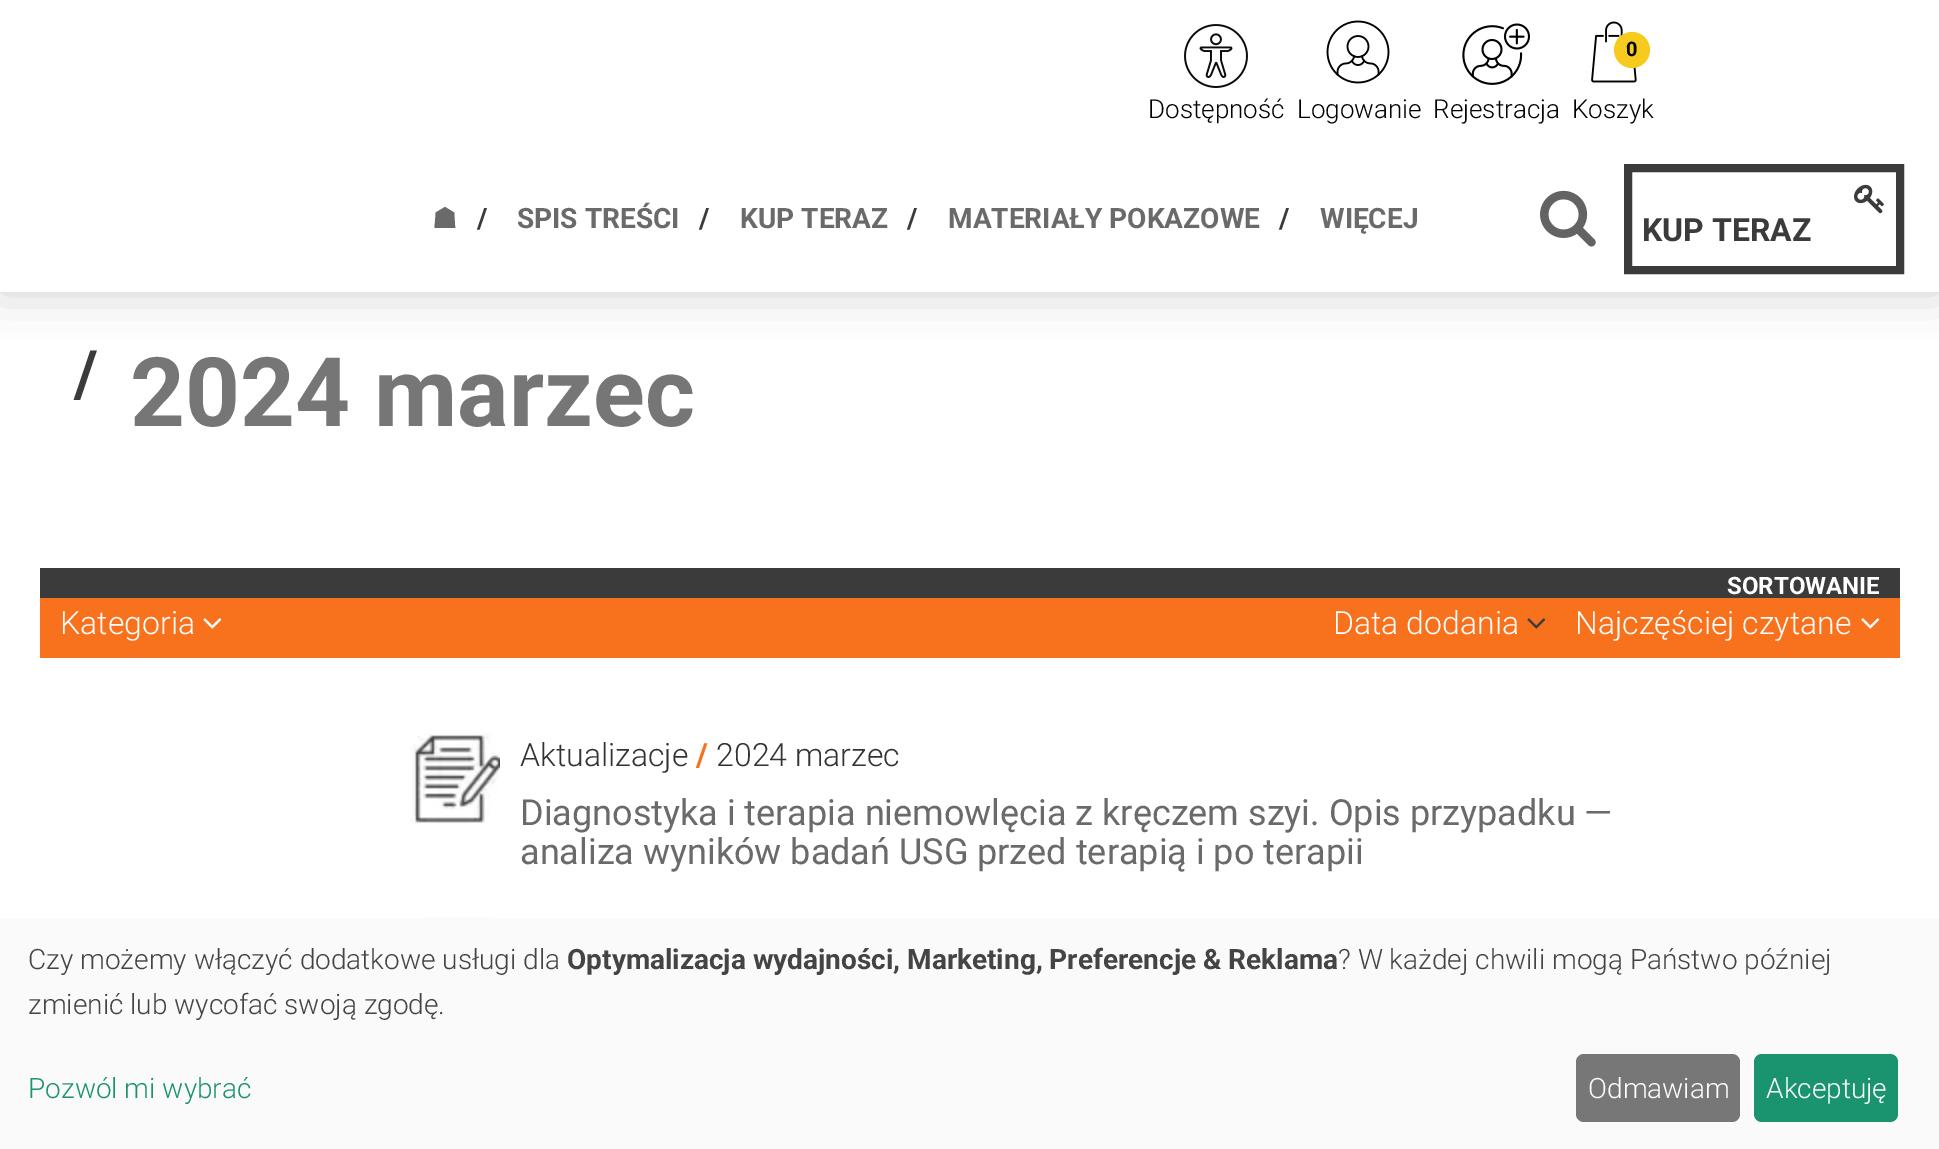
%!PS-Adobe-3.0
%%BoundingBox: 0 0 1939 1149
%%LanguageLevel: 3
%%Pages: 1
%%EndComments
%%BeginProlog
/setink { dup -16 bitshift 255 div exch dup -8 bitshift 255 and 255 div exch 255 and 255 div setrgbcolor } def
/usefont { [ exch dup neg 0 0 3 -1 roll 0 0 ] selectfont } def
/setalpha { dup .setfillconstantalpha .setstrokeconstantalpha } def
/disc { newpath 0 360 arc closepath } def
/rrect { 5 dict begin { /r /h /w /y /x } { exch def } forall
  x r add y moveto x w add y 2 copy h add r arct x w add y h add x 1 index r arct
  x y h add x y r arct x y 2 copy exch w add exch r arct closepath end } def
/softshadow { 12 dict begin { /a /b /q /h /w /y /x } { exch def } forall gsave /was 0 def
  9 -2 -9 { dup b mul 4 div /e exch def 1 sub .425 mul 2.718 exch exp 1 add a .99 .min exch div /now exch def
    1 1 now sub 1 was sub div sub setalpha /was now def
    w h .min e 2 mul add 0 gt { x e sub y e sub w e 2 mul add h e 2 mul add
      q e add b .6 mul add w h .min 2 div e add .min 0 .max rrect fill } if } for grestore end } def
/drawimage { 5 dict begin { /h /w /y /x /name } { exch def } forall
  gsave x y translate w h scale
  w h 8 [w 0 0 h 0 0] name (r) file false 3 colorimage grestore end } def
%%EndProlog
%%BeginSetup
<< /PageSize [1939 1149] /PageUsesTransparency true >> setpagedevice
%%EndSetup
%%Page: 1 1
0 .pushpdf14devicefilter
0 1149 translate 1 -1 scale
4 setmiterlimit
16#FFFFFF setink
0 0 1939 1149 rectfill
gsave
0 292 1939 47 rectclip
16#CCCCCC setink
0 0 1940 292 0 23 1 softshadow
grestore
(img1.raw) 1184 24 64 64 drawimage
/Roboto-Light 26 usefont
16#000000 setink
1148 118 moveto (Dostępność) show
(img2.raw) 1326 20 64 64 drawimage
1297 118 moveto (Logowanie) show
(img3.raw) 1462 23 68 62 drawimage
1433 118 moveto (Rejestracja) show
(img4.raw) 1591 21 46 62 drawimage
16#F6CB1D setink
1632 50 18 disc fill
/Roboto-Bold 20 usefont
16#000000 setink
1626 56 moveto (0) show
/Roboto-Light 26 usefont
1572 118 moveto (Koszyk) show
/DejaVuSans-Bold 28 usefont
16#6A6A6B setink
432 228 moveto (☗) show
/Roboto-Bold 28 usefont
16#3B3B3B setink
477 228 moveto (/) show
16#6A6A6B setink
517 228 moveto (SPIS TREŚCI) show
16#3B3B3B setink
699 228 moveto (/) show
16#6A6A6B setink
740 228 moveto (KUP TERAZ) show
16#3B3B3B setink
907 228 moveto (/) show
16#6A6A6B setink
948 228 moveto (MATERIAŁY POKAZOWE) show
16#3B3B3B setink
1279 228 moveto (/) show
16#6A6A6B setink
1320 228 moveto (WIĘCEJ) show
(img5.raw) 1540 190 56 57 drawimage
16#3B3B3B setink
8 setlinewidth
1628 168 272 102 rectstroke
(img6.raw) 1854 184 30 30 drawimage
/Roboto-Bold 32 usefont
1642 241 moveto (KUP TERAZ) show
/Roboto-Bold 64 usefont
74 396 moveto (/) show
/Roboto-Bold 96 usefont
16#767676 setink
130 426 moveto (2024 marzec) show
16#F8721D setink
40 598 1860 60 rectfill
16#3B3B3B setink
40 568 1860 30 rectfill
/Roboto-Light 32 usefont
16#FFFFFF setink
60 634 moveto (Kategoria) show
(img7.raw) 203 618 19 11 drawimage
/Roboto-Bold 24 usefont
1727 594 moveto (SORTOWANIE) show
/Roboto-Light 32 usefont
1333 634 moveto (Data dodania) show
(img8.raw) 1527 618 19 11 drawimage
1575 634 moveto (Najczęściej czytane) show
(img7.raw) 1861 618 19 11 drawimage
(img9.raw) 410 733 90 91 drawimage
16#333333 setink
520 766 moveto (Aktualizacje) show
/Roboto-Bold 32 usefont
16#F8721D setink
696 766 moveto (/) show
/Roboto-Light 32 usefont
16#333333 setink
716 766 moveto (2024 marzec) show
/Roboto-Regular 36 usefont
16#6A6A6B setink
520 825 moveto (Diagnostyka i terapia niemowlęcia z kręczem szyi. Opis przypadku —) show
520 864 moveto (analiza wyników badań USG przed terapią i po terapii) show
(img10.raw) 410 917 90 1 drawimage
16#FAFAFA setink
0 918 1939 231 rectfill
/Roboto-Light 28 usefont
16#444444 setink
28 969 moveto (Czy możemy włączyć dodatkowe usługi dla) show
/Roboto-Bold 28 usefont
567 969 moveto (Optymalizacja wydajności, Marketing, Preferencje & Reklama) show
/Roboto-Light 28 usefont
1338 969 moveto (? W każdej chwili mogą Państwo później) show
28 1014 moveto (zmienić lub wycofać swoją zgodę.) show
16#1A936F setink
28 1098 moveto (Pozwól mi wybrać) show
16#777777 setink
1576 1054 164 68 8 rrect fill
16#FFFFFF setink
1588 1098 moveto (Odmawiam) show
16#1A936F setink
1754 1054 144 68 8 rrect fill
16#FFFFFF setink
1766 1098 moveto (Akceptuję) show
.poppdf14devicefilter showpage
%%EOF
